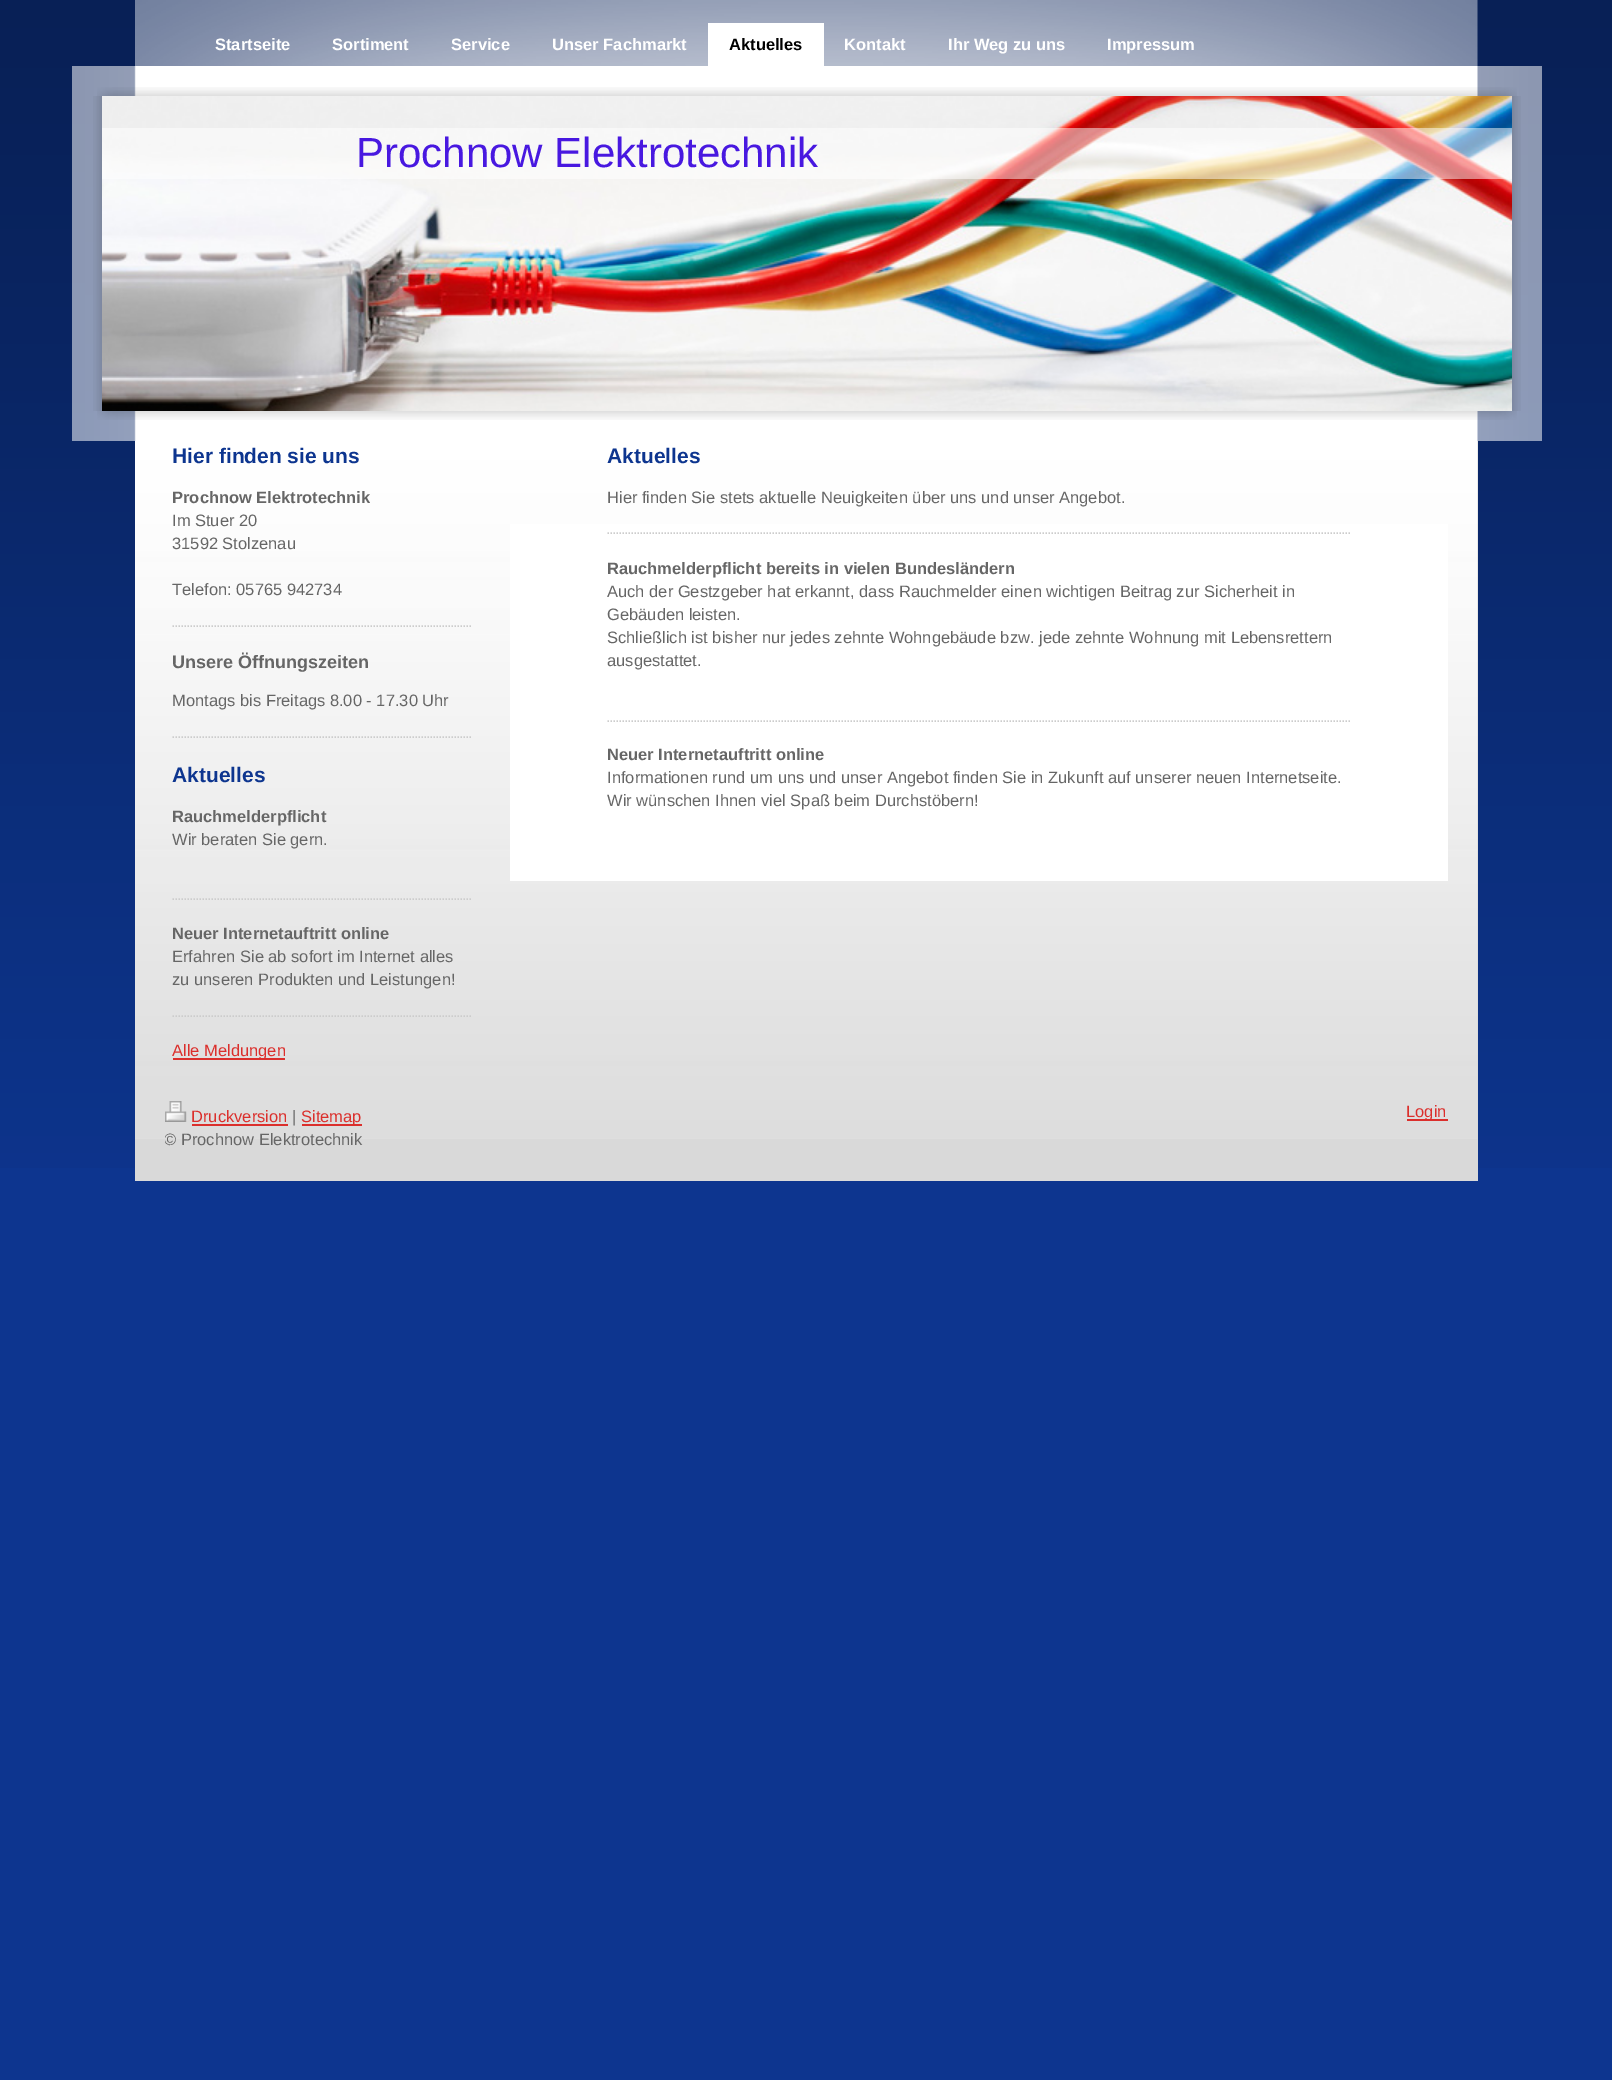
%!PS-Adobe-3.0
%%BoundingBox: 0 0 1612 2080
%%LanguageLevel: 3
%%Pages: 1
%%EndComments
%%BeginProlog
/setink { dup -16 bitshift 255 div exch dup -8 bitshift 255 and 255 div exch 255 and 255 div setrgbcolor } def
/usefont { [ exch dup neg 0 0 3 -1 roll 0 0 ] selectfont } def
/setalpha { dup .setfillconstantalpha .setstrokeconstantalpha } def
/drawimage { 5 dict begin { /h /w /y /x /name } { exch def } forall
  gsave x y translate w h scale
  w h 8 [w 0 0 h 0 0] name (r) file false 3 colorimage grestore end } def
%%EndProlog
%%BeginSetup
<< /PageSize [1612 2080] /PageUsesTransparency true >> setpagedevice
%%EndSetup
%%Page: 1 1
0 .pushpdf14devicefilter
0 2080 translate 1 -1 scale
4 setmiterlimit
16#0D358F setink
0 0 1612 2080 rectfill
(img1.raw) 0 0 1612 1168 drawimage
(img2.raw) 135 0 1343 66 drawimage
/LiberationSans-Bold 16.5 usefont
16#FFFFFF setink
[
    [(Startseite) 215 50]
    [(Sortiment) 332 50]
    [(Service) 451 50]
    [(Unser Fachmarkt) 552 50]
] { aload pop moveto show } forall
708 23 116 43 rectfill
16#000000 setink
729 50 moveto (Aktuelles) show
16#FFFFFF setink
[
    [(Kontakt) 844 50]
    [(Ihr Weg zu uns) 948 50]
    [(Impressum) 1107 50]
] { aload pop moveto show } forall
(img3.raw) 72 66 1470 375 drawimage
(img4.raw) 97 87 1420 9 drawimage
(img5.raw) 93 96 1428 315 drawimage
(img6.raw) 102 96 1410 315 drawimage
0.5 setalpha
102 128 1410 51 rectfill
/LiberationSans-Regular 42 usefont
1 setalpha
16#4818E0 setink
356 167 moveto (Prochnow Elektrotechnik) show
(img7.raw) 97 411 1420 9 drawimage
16#D9D9D9 setink
135 441 1343 740 rectfill
(img8.raw) 135 441 1343 698 drawimage
/LiberationSans-Bold 21 usefont
16#0D358F setink
172 463 moveto (Hier finden sie uns) show
/LiberationSans-Bold 16.5 usefont
16#666666 setink
172 503 moveto (Prochnow Elektrotechnik) show
/LiberationSans-Regular 16.5 usefont
[
    [(Im Stuer 20) 172 526]
    [(31592 Stolzenau) 172 549]
    [(Telefon: 05765 942734) 172 595]
] { aload pop moveto show } forall
16#CCCCCC setink
1.5 setlinewidth
[1.5 1.5] 0 setdash
172.5 626 moveto 472.5 626 lineto stroke
/LiberationSans-Bold 18 usefont
16#666666 setink
172 668 moveto (Unsere Öffnungszeiten) show
/LiberationSans-Regular 16.5 usefont
172 706 moveto (Montags bis Freitags 8.00 - 17.30 Uhr) show
16#CCCCCC setink
172.5 737 moveto 472.5 737 lineto stroke
/LiberationSans-Bold 21 usefont
16#0D358F setink
172 782 moveto (Aktuelles) show
/LiberationSans-Bold 16.5 usefont
16#666666 setink
172 822 moveto (Rauchmelderpflicht) show
/LiberationSans-Regular 16.5 usefont
172 845 moveto (Wir beraten Sie gern.) show
16#CCCCCC setink
172.5 899 moveto 472.5 899 lineto stroke
/LiberationSans-Bold 16.5 usefont
16#666666 setink
172 939 moveto (Neuer Internetauftritt online) show
/LiberationSans-Regular 16.5 usefont
172 962 moveto (Erfahren Sie ab sofort im Internet alles) show
172 985 moveto (zu unseren Produkten und Leistungen!) show
16#CCCCCC setink
172.5 1016 moveto 472.5 1016 lineto stroke
16#DB2F2C setink
173 1058 112 2 rectfill
172 1056 moveto (Alle Meldungen) show
16#FFFFFF setink
510 524 938 357 rectfill
/LiberationSans-Bold 21 usefont
16#0D358F setink
607 463 moveto (Aktuelles) show
/LiberationSans-Regular 16.5 usefont
16#666666 setink
607 503 moveto (Hier finden Sie stets aktuelle Neuigkeiten über uns und unser Angebot.) show
16#CCCCCC setink
607.5 533 moveto 1350 533 lineto stroke
/LiberationSans-Bold 16.5 usefont
16#666666 setink
607 574 moveto (Rauchmelderpflicht bereits in vielen Bundesländern) show
/LiberationSans-Regular 16.5 usefont
[
    [(Auch der Gestzgeber hat erkannt, dass Rauchmelder einen wichtigen Beitrag zur Sicherheit in) 607 597]
    [(Gebäuden leisten.) 607 620]
    [(Schließlich ist bisher nur jedes zehnte Wohngebäude bzw. jede zehnte Wohnung mit Lebensrettern) 607 643]
    [(ausgestattet.) 607 666]
] { aload pop moveto show } forall
16#CCCCCC setink
607.5 721 moveto 1350 721 lineto stroke
/LiberationSans-Bold 16.5 usefont
16#666666 setink
607 760 moveto (Neuer Internetauftritt online) show
/LiberationSans-Regular 16.5 usefont
607 783 moveto (Informationen rund um uns und unser Angebot finden Sie in Zukunft auf unserer neuen Internetseite.) show
607 806 moveto (Wir wünschen Ihnen viel Spaß beim Durchstöbern!) show
(img9.raw) 165 1101 22 21 drawimage
16#DB2F2C setink
191 1122 moveto (Druckversion) show
192 1124 96 2 rectfill
16#666666 setink
292 1122 moveto (|) show
16#DB2F2C setink
302 1124 60 2 rectfill
301 1122 moveto (Sitemap) show
gsave
165 1101 1283 50 rectclip
16#666666 setink
164 1145 moveto (© Prochnow Elektrotechnik) show
grestore
1407 1119 41 2 rectfill
1406 1117 moveto (Login) show
.poppdf14devicefilter showpage
%%EOF
